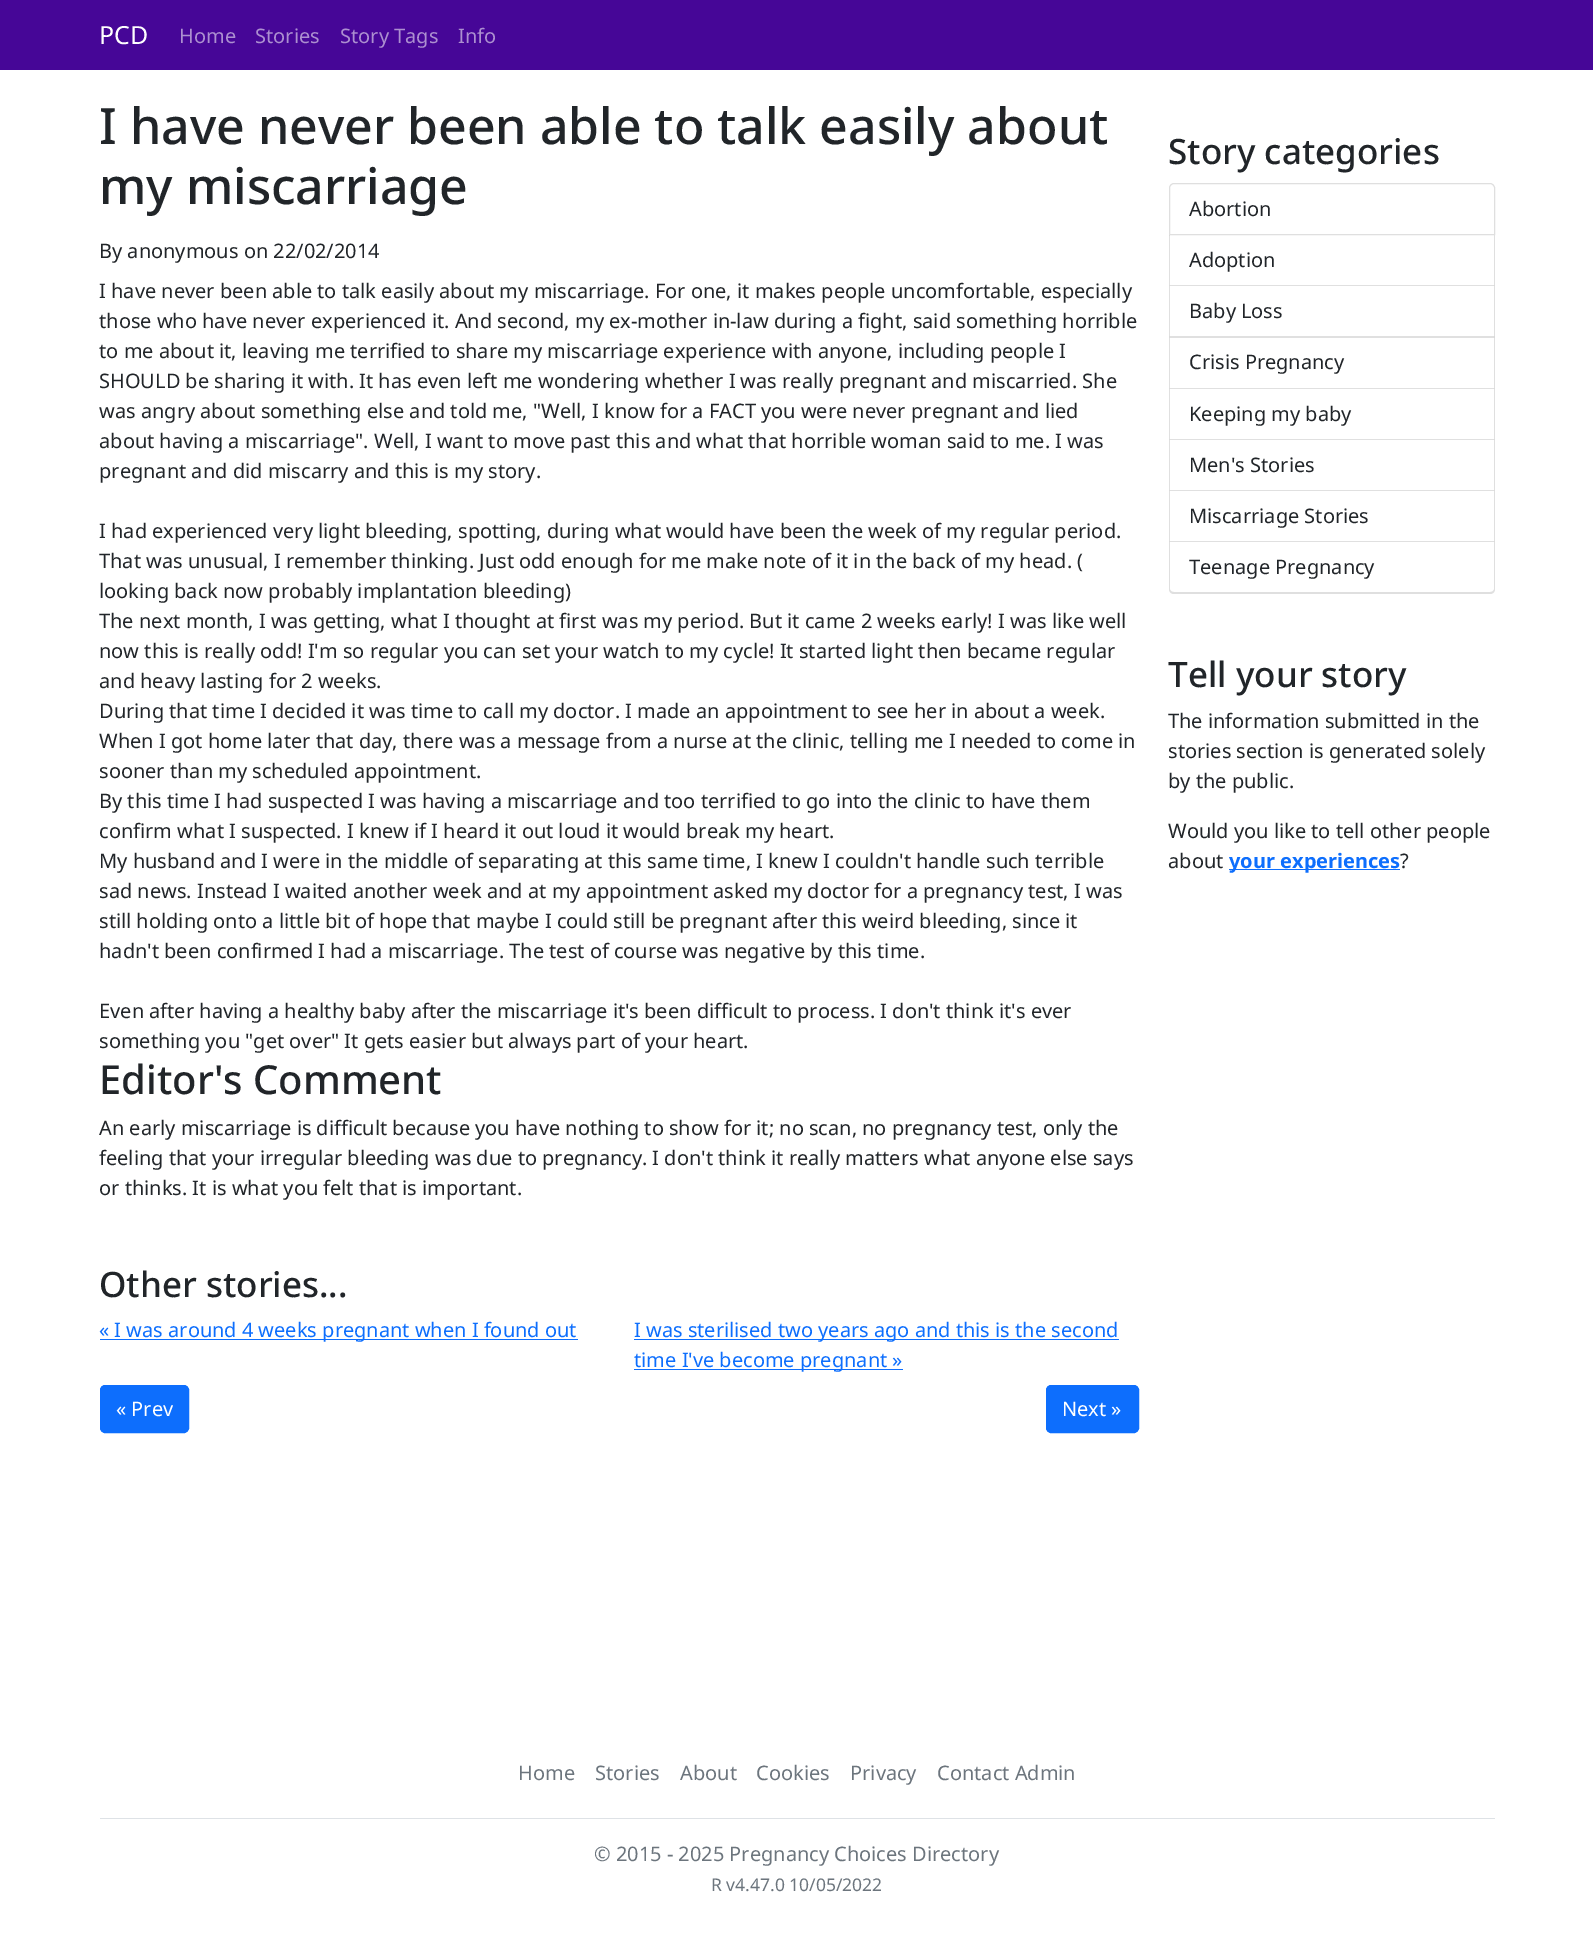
%!PS-Adobe-3.0
%%BoundingBox: 0 0 1593 1938
%%LanguageLevel: 3
%%Pages: 1
%%EndComments
%%BeginProlog
/setink { dup -16 bitshift 255 div exch dup -8 bitshift 255 and 255 div exch 255 and 255 div setrgbcolor } def
/usefont { [ exch dup neg 0 0 3 -1 roll 0 0 ] selectfont } def
/setalpha { dup .setfillconstantalpha .setstrokeconstantalpha } def
/rrect { 5 dict begin { /r /h /w /y /x } { exch def } forall
  x r add y moveto x w add y 2 copy h add r arct x w add y h add x 1 index r arct
  x y h add x y r arct x y 2 copy exch w add exch r arct closepath end } def
%%EndProlog
%%BeginSetup
<< /PageSize [1593 1938] /PageUsesTransparency true >> setpagedevice
%%EndSetup
%%Page: 1 1
0 .pushpdf14devicefilter
0 1938 translate 1 -1 scale
4 setmiterlimit
16#FFFFFF setink
0 0 1593 1938 rectfill
16#460697 setink
0 0 1593 70 rectfill
/NotoSans-Regular 25 usefont
16#FFFFFF setink
99 44 moveto (PCD) show
/NotoSans-Regular 20 usefont
16#AC8FD0 setink
[
    [(Home) 179 43]
    [(Stories) 255 43]
    [(Story Tags) 340 43]
    [(Info) 458 43]
] { aload pop moveto show } forall
/NotoSans-Medium 50 usefont
16#212529 setink
99 144 moveto (I have never been able to talk easily about) show
99 204 moveto (my miscarriage) show
/NotoSans-Regular 20 usefont
[
    [(By anonymous on 22/02/2014) 99 258]
    [(I have never been able to talk easily about my miscarriage. For one, it makes people uncomfortable, especially) 99 298]
    [(those who have never experienced it. And second, my ex-mother in-law during a fight, said something horrible) 99 328]
    [(to me about it, leaving me terrified to share my miscarriage experience with anyone, including people I) 99 358]
    [(SHOULD be sharing it with. It has even left me wondering whether I was really pregnant and miscarried. She) 99 388]
    [(was angry about something else and told me, "Well, I know for a FACT you were never pregnant and lied) 99 418]
    [(about having a miscarriage". Well, I want to move past this and what that horrible woman said to me. I was) 99 448]
    [(pregnant and did miscarry and this is my story.) 99 478]
    [(I had experienced very light bleeding, spotting, during what would have been the week of my regular period.) 99 538]
    [(That was unusual, I remember thinking. Just odd enough for me make note of it in the back of my head. \() 99 568]
    [(looking back now probably implantation bleeding\)) 99 598]
    [(The next month, I was getting, what I thought at first was my period. But it came 2 weeks early! I was like well) 99 628]
    [(now this is really odd! I'm so regular you can set your watch to my cycle! It started light then became regular) 99 658]
    [(and heavy lasting for 2 weeks.) 99 688]
    [(During that time I decided it was time to call my doctor. I made an appointment to see her in about a week.) 99 718]
    [(When I got home later that day, there was a message from a nurse at the clinic, telling me I needed to come in) 99 748]
    [(sooner than my scheduled appointment.) 99 778]
    [(By this time I had suspected I was having a miscarriage and too terrified to go into the clinic to have them) 99 808]
    [(confirm what I suspected. I knew if I heard it out loud it would break my heart.) 99 838]
    [(My husband and I were in the middle of separating at this same time, I knew I couldn't handle such terrible) 99 868]
    [(sad news. Instead I waited another week and at my appointment asked my doctor for a pregnancy test, I was) 99 898]
    [(still holding onto a little bit of hope that maybe I could still be pregnant after this weird bleeding, since it) 99 928]
    [(hadn't been confirmed I had a miscarriage. The test of course was negative by this time.) 99 958]
    [(Even after having a healthy baby after the miscarriage it's been difficult to process. I don't think it's ever) 99 1018]
    [(something you "get over" It gets easier but always part of your heart.) 99 1048]
] { aload pop moveto show } forall
/NotoSans-Medium 40 usefont
99 1094 moveto (Editor's Comment) show
/NotoSans-Regular 20 usefont
[
    [(An early miscarriage is difficult because you have nothing to show for it; no scan, no pregnancy test, only the) 99 1135]
    [(feeling that your irregular bleeding was due to pregnancy. I don't think it really matters what anyone else says) 99 1165]
    [(or thinks. It is what you felt that is important.) 99 1195]
] { aload pop moveto show } forall
/NotoSans-Medium 35 usefont
99 1297 moveto (Other stories...) show
16#0D6EFD setink
100 1339 478 1 rectfill
/NotoSans-Regular 20 usefont
99 1337 moveto (« I was around 4 weeks pregnant when I found out) show
634 1339 485 1 rectfill
634 1337 moveto (I was sterilised two years ago and this is the second) show
634 1369 269 1 rectfill
634 1367 moveto (time I've become pregnant ») show
100.5 1385.5 88 47 4.5 rrect gsave fill grestore
stroke
16#FFFFFF setink
116 1416 moveto (« Prev) show
16#0D6EFD setink
1046.5 1385.5 92 47 4.5 rrect gsave fill grestore
stroke
16#FFFFFF setink
1062 1416 moveto (Next ») show
/NotoSans-Medium 35 usefont
16#212529 setink
1168 164 moveto (Story categories) show
16#DFDFDF setink
1174 183.5 moveto 1490 183.5 lineto 1492.5 183.5 1494.5 185.5 1494.5 188 curveto 1494.5 234.5 lineto 1169.5 234.5 lineto 1169.5 188 lineto 1169.5 185.5 1171.5 183.5 1174 183.5 curveto closepath stroke
/NotoSans-Regular 20 usefont
16#212529 setink
1189 216 moveto (Abortion) show
16#DFDFDF setink
1495 235 moveto 1495 286 lineto 1494 285 lineto 1494 235 lineto closepath fill
0.12 setalpha
16#000000 setink
1495 286 moveto 1169 286 lineto 1170 285 lineto 1494 285 lineto closepath fill
1169 286 moveto 1169 235 lineto 1170 235 lineto 1170 285 lineto closepath fill
1 setalpha
16#212529 setink
1189 267 moveto (Adoption) show
16#DFDFDF setink
1495 286 moveto 1495 338 lineto 1494 336 lineto 1494 286 lineto closepath fill
0.12 setalpha
16#000000 setink
1495 338 moveto 1169 338 lineto 1170 336 lineto 1494 336 lineto closepath fill
1169 338 moveto 1169 286 lineto 1170 286 lineto 1170 336 lineto closepath fill
1 setalpha
16#212529 setink
1189 318 moveto (Baby Loss) show
16#DFDFDF setink
1495 338 moveto 1495 389 lineto 1494 388 lineto 1494 338 lineto closepath fill
0.12 setalpha
16#000000 setink
1495 389 moveto 1169 389 lineto 1170 388 lineto 1494 388 lineto closepath fill
1169 389 moveto 1169 338 lineto 1170 338 lineto 1170 388 lineto closepath fill
1 setalpha
16#212529 setink
1189 369 moveto (Crisis Pregnancy) show
16#DFDFDF setink
1495 389 moveto 1495 440 lineto 1494 439 lineto 1494 389 lineto closepath fill
0.12 setalpha
16#000000 setink
1495 440 moveto 1169 440 lineto 1170 439 lineto 1494 439 lineto closepath fill
1169 440 moveto 1169 389 lineto 1170 389 lineto 1170 439 lineto closepath fill
1 setalpha
16#212529 setink
1189 421 moveto (Keeping my baby) show
16#DFDFDF setink
1495 440 moveto 1495 491 lineto 1494 490 lineto 1494 440 lineto closepath fill
0.12 setalpha
16#000000 setink
1495 491 moveto 1169 491 lineto 1170 490 lineto 1494 490 lineto closepath fill
1169 491 moveto 1169 440 lineto 1170 440 lineto 1170 490 lineto closepath fill
1 setalpha
16#212529 setink
1189 472 moveto (Men's Stories) show
16#DFDFDF setink
1495 491 moveto 1495 542 lineto 1494 541 lineto 1494 491 lineto closepath fill
0.12 setalpha
16#000000 setink
1495 542 moveto 1169 542 lineto 1170 541 lineto 1494 541 lineto closepath fill
1169 542 moveto 1169 491 lineto 1170 491 lineto 1170 541 lineto closepath fill
1 setalpha
16#212529 setink
1189 523 moveto (Miscarriage Stories) show
16#DFDFDF setink
1169 542 moveto 1495 542 lineto 1495 589 lineto 1495 592 1493 594 1490 594 curveto 1174 594 lineto 1171 594 1169 592 1169 589 curveto closepath 1170 542 moveto 1494 542 lineto 1494 589 lineto 1494 591 1492 592 1490 592 curveto 1174 592 lineto 1172 592 1170 591 1170 589 curveto closepath eofill
16#212529 setink
1189 574 moveto (Teenage Pregnancy) show
/NotoSans-Medium 35 usefont
1168 687 moveto (Tell your story) show
/NotoSans-Regular 20 usefont
[
    [(The information submitted in the) 1168 728]
    [(stories section is generated solely) 1168 758]
    [(by the public.) 1168 788]
    [(Would you like to tell other people) 1168 838]
    [(about) 1168 868]
] { aload pop moveto show } forall
16#0D6EFD setink
1229 869 171 1 rectfill
/NotoSans-Bold 20 usefont
1229 868 moveto (your experiences) show
/NotoSans-Regular 20 usefont
16#212529 setink
1400 868 moveto (?) show
16#DEE2E6 setink
100 1818 1395 1 rectfill
16#6C757D setink
[
    [(Home) 518 1780]
    [(Stories) 595 1780]
    [(About) 680 1780]
    [(Cookies) 756 1780]
    [(Privacy) 850 1780]
    [(Contact Admin) 937 1780]
    [(© 2015 - 2025 Pregnancy Choices Directory) 594 1861]
] { aload pop moveto show } forall
/NotoSans-Regular 17.5 usefont
711 1891 moveto (R v4.47.0 10/05/2022) show
.poppdf14devicefilter showpage
%%EOF
